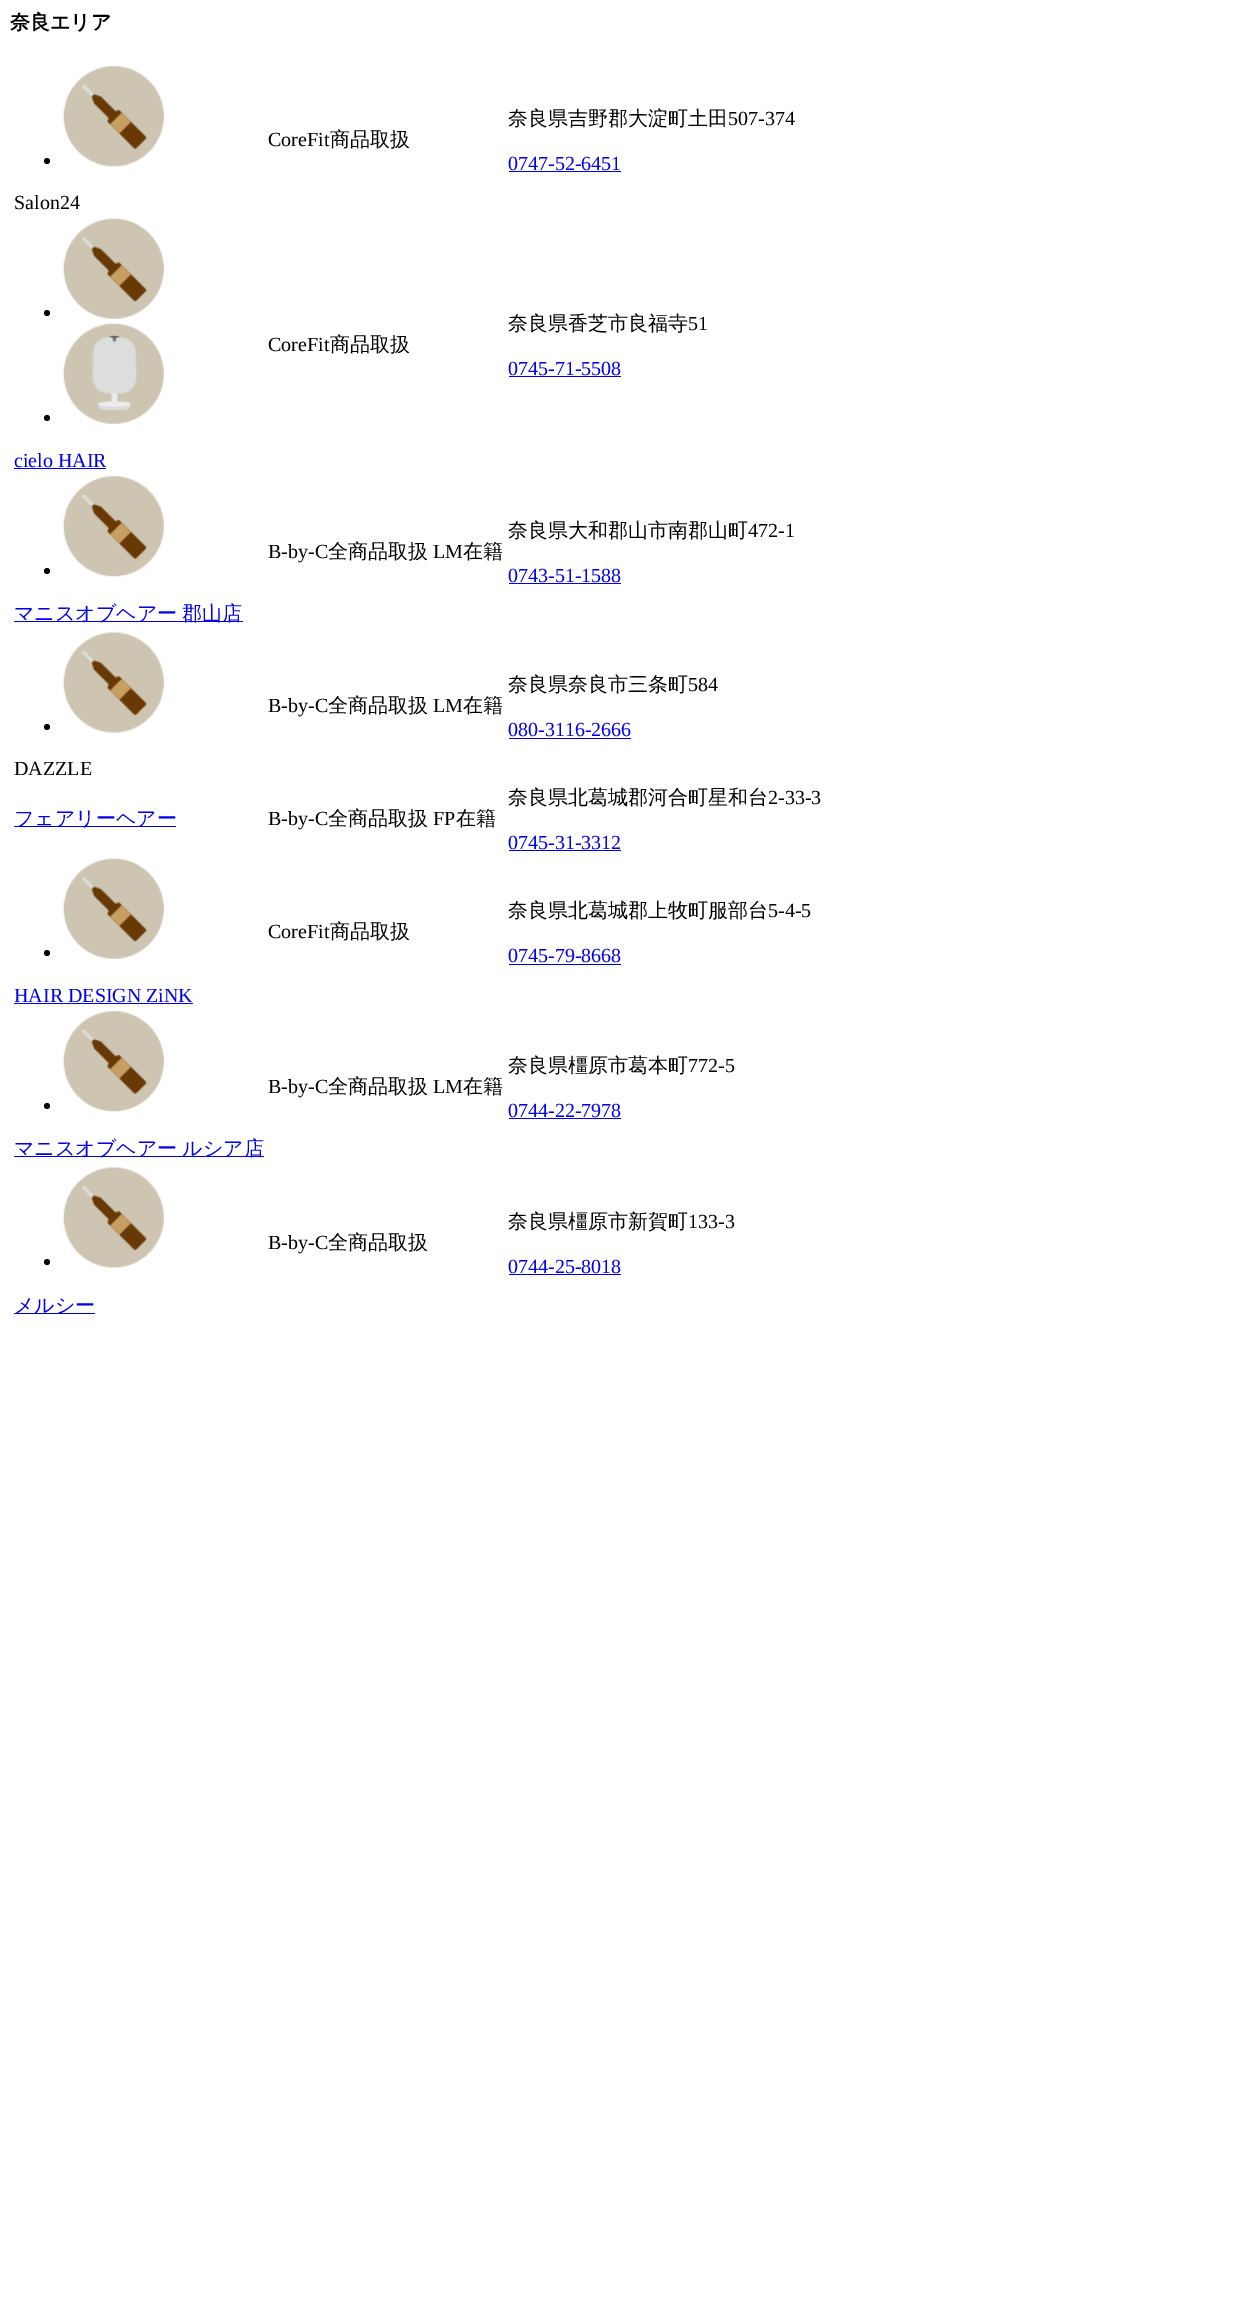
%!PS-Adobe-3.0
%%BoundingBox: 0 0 1246 2322
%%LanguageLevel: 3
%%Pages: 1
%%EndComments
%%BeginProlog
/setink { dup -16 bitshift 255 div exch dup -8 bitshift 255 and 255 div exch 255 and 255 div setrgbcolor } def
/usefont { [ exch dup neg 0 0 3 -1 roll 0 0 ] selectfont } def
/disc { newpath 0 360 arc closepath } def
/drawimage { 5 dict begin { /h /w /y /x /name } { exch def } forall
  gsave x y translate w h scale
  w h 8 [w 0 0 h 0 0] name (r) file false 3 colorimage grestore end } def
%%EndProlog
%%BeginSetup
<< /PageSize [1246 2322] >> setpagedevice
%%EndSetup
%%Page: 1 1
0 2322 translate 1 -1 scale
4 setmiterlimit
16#FFFFFF setink
0 0 1246 2322 rectfill
/WenQuanYiZenHei-Bold 20 usefont
16#000000 setink
10 29 moveto (奈良エリア) show
/LiberationSerif-Regular 20 usefont
268 146 moveto (CoreFit) show
/WenQuanYiZenHei-Medium 20 usefont
330 146 moveto (商品取扱) show
508 125 moveto (奈良県吉野郡大淀町土田) show
/LiberationSerif-Regular 20 usefont
728 125 moveto (507-374) show
16#0000EE setink
508 170 moveto (0747-52-6451) show
509 171 112 1 rectfill
16#000000 setink
47 161 3 disc fill
(img1.raw) 63 66 101 101 drawimage
14 209 moveto (Salon24) show
268 351 moveto (CoreFit) show
/WenQuanYiZenHei-Medium 20 usefont
330 351 moveto (商品取扱) show
508 330 moveto (奈良県香芝市良福寺) show
/LiberationSerif-Regular 20 usefont
688 330 moveto (51) show
16#0000EE setink
508 375 moveto (0745-71-5508) show
509 376 112 1 rectfill
16#000000 setink
47 313 3 disc fill
(img2.raw) 63 218 101 101 drawimage
47 418 3 disc fill
(img3.raw) 63 323 101 101 drawimage
16#0000EE setink
14 467 moveto (cielo HAIR) show
14 468 92 1 rectfill
16#000000 setink
268 558 moveto (B-by-C) show
/WenQuanYiZenHei-Medium 20 usefont
328 558 moveto (全商品取扱) show
/LiberationSerif-Regular 20 usefont
433 558 moveto (LM) show
/WenQuanYiZenHei-Medium 20 usefont
463 558 moveto (在籍) show
508 537 moveto (奈良県大和郡山市南郡山町) show
/LiberationSerif-Regular 20 usefont
748 537 moveto (472-1) show
16#0000EE setink
508 582 moveto (0743-51-1588) show
509 583 112 1 rectfill
16#000000 setink
47 571 3 disc fill
(img1.raw) 63 476 101 101 drawimage
16#0000EE setink
14 621 229 1 rectfill
/WenQuanYiZenHei-Medium 20 usefont
14 620 moveto -1 0 32 (マニスオブヘアー 郡山店) widthshow
/LiberationSerif-Regular 20 usefont
16#000000 setink
268 712 moveto (B-by-C) show
/WenQuanYiZenHei-Medium 20 usefont
328 712 moveto (全商品取扱) show
/LiberationSerif-Regular 20 usefont
433 712 moveto (LM) show
/WenQuanYiZenHei-Medium 20 usefont
463 712 moveto (在籍) show
508 691 moveto (奈良県奈良市三条町) show
/LiberationSerif-Regular 20 usefont
688 691 moveto (584) show
16#0000EE setink
508 736 moveto (080-3116-2666) show
509 738 122 1 rectfill
16#000000 setink
47 727 3 disc fill
(img4.raw) 63 632 101 101 drawimage
14 775 moveto (DAZZLE) show
16#0000EE setink
14 826 162 1 rectfill
/WenQuanYiZenHei-Medium 20 usefont
14 825 moveto (フェアリーヘアー) show
/LiberationSerif-Regular 20 usefont
16#000000 setink
268 825 moveto (B-by-C) show
/WenQuanYiZenHei-Medium 20 usefont
328 825 moveto (全商品取扱) show
/LiberationSerif-Regular 20 usefont
433 825 moveto (FP) show
/WenQuanYiZenHei-Medium 20 usefont
456 825 moveto (在籍) show
508 804 moveto (奈良県北葛城郡河合町星和台) show
/LiberationSerif-Regular 20 usefont
768 804 moveto (2-33-3) show
16#0000EE setink
508 849 moveto (0745-31-3312) show
509 850 112 1 rectfill
16#000000 setink
268 938 moveto (CoreFit) show
/WenQuanYiZenHei-Medium 20 usefont
330 938 moveto (商品取扱) show
508 917 moveto (奈良県北葛城郡上牧町服部台) show
/LiberationSerif-Regular 20 usefont
768 917 moveto (5-4-5) show
16#0000EE setink
508 962 moveto (0745-79-8668) show
509 964 112 1 rectfill
16#000000 setink
47 953 3 disc fill
(img2.raw) 63 858 101 101 drawimage
16#0000EE setink
14 1002 moveto (HAIR DESIGN ZiNK) show
14 1003 179 1 rectfill
16#000000 setink
268 1093 moveto (B-by-C) show
/WenQuanYiZenHei-Medium 20 usefont
328 1093 moveto (全商品取扱) show
/LiberationSerif-Regular 20 usefont
433 1093 moveto (LM) show
/WenQuanYiZenHei-Medium 20 usefont
463 1093 moveto (在籍) show
508 1072 moveto (奈良県橿原市葛本町) show
/LiberationSerif-Regular 20 usefont
688 1072 moveto (772-5) show
16#0000EE setink
508 1117 moveto (0744-22-7978) show
509 1118 112 1 rectfill
16#000000 setink
47 1106 3 disc fill
(img1.raw) 63 1011 101 101 drawimage
16#0000EE setink
14 1156 250 1 rectfill
/WenQuanYiZenHei-Medium 20 usefont
14 1155 moveto -1 0 32 (マニスオブヘアー ルシア店) widthshow
/LiberationSerif-Regular 20 usefont
16#000000 setink
268 1249 moveto (B-by-C) show
/WenQuanYiZenHei-Medium 20 usefont
328 1249 moveto (全商品取扱) show
508 1228 moveto (奈良県橿原市新賀町) show
/LiberationSerif-Regular 20 usefont
688 1228 moveto (133-3) show
16#0000EE setink
508 1273 moveto (0744-25-8018) show
509 1274 112 1 rectfill
16#000000 setink
47 1262 3 disc fill
(img5.raw) 63 1167 101 101 drawimage
16#0000EE setink
14 1313 81 1 rectfill
/WenQuanYiZenHei-Medium 20 usefont
14 1312 moveto (メルシー) show
showpage
%%EOF
